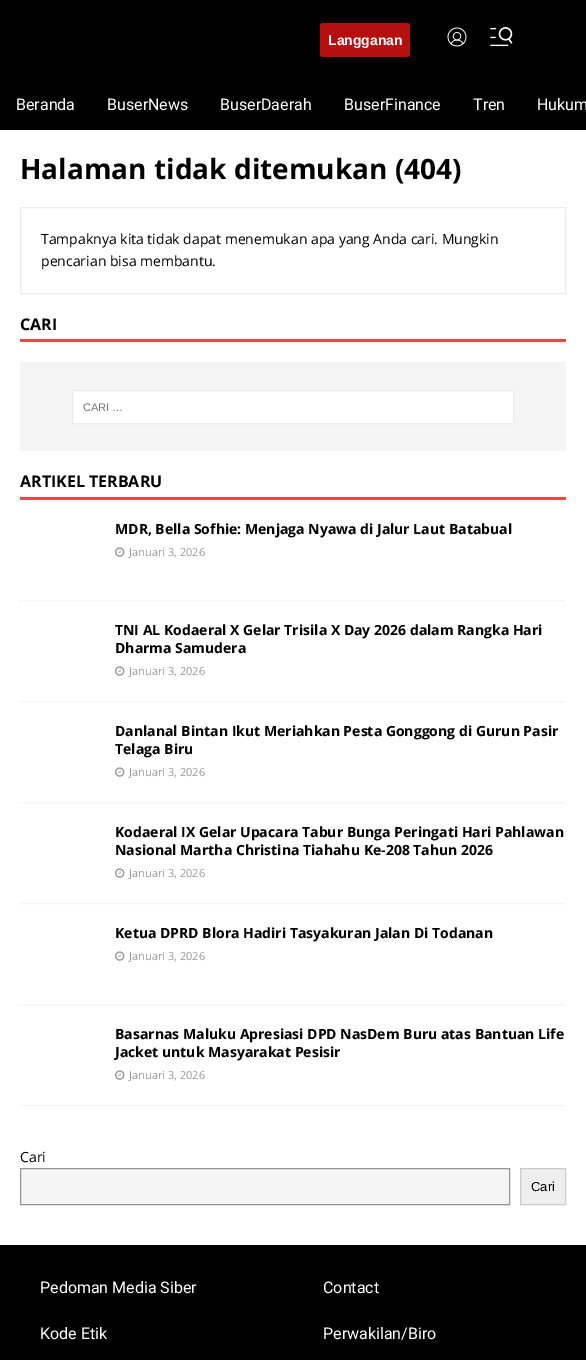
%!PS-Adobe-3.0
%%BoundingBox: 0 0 586 1360
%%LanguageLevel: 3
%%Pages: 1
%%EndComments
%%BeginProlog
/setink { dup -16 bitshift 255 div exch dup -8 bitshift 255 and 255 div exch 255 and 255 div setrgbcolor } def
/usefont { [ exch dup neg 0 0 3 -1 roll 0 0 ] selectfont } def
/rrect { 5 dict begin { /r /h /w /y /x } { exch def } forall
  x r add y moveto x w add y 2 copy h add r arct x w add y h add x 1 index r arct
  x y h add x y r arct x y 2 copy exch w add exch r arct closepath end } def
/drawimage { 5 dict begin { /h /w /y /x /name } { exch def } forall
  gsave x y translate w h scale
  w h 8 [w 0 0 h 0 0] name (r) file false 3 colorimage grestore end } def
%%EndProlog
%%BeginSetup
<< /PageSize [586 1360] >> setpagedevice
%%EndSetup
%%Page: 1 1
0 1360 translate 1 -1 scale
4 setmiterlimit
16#FFFFFF setink
0 0 586 1360 rectfill
16#000000 setink
0 0 586 130 rectfill
16#B60F0F setink
320 23 90 34 3 rrect fill
/LiberationSans-Bold 14 usefont
16#FFFFFF setink
328 45 moveto (Langganan) show
(img1.raw) 447 27 20 20 drawimage
(img2.raw) 490 27 23 20 drawimage
/Roboto-Regular 16 usefont
[
    [(Beranda) 16 110]
    [(BuserNews) 107 110]
    [(BuserDaerah) 220 110]
    [(BuserFinance) 344 110]
    [(Tren) 473 110]
    [(Hukum) 537 110]
] { aload pop moveto show } forall
/OpenSans-Bold 28 usefont
16#000000 setink
20 179 moveto (Halaman tidak ditemukan \(404\)) show
16#EBEBEB setink
20.5 207.5 545 86 rectstroke
/OpenSans-Regular 14 usefont
16#000000 setink
41 244 moveto (Tampaknya kita tidak dapat menemukan apa yang Anda cari. Mungkin) show
41 266 moveto (pencarian bisa membantu.) show
16#E64946 setink
20 339 546 3 rectfill
/OpenSans-Bold 16 usefont
16#000000 setink
20 330 moveto (CARI) show
16#F5F5F5 setink
20 362 546 89 rectfill
16#FFFFFF setink
72.5 390.5 moveto 513.5 390.5 lineto 513.5 423.5 lineto 72.5 423.5 lineto closepath gsave fill grestore
16#EBEBEB setink
stroke
/LiberationSans-Regular 11 usefont
16#757575 setink
83 411 moveto (CARI …) show
16#E64946 setink
20 497 546 3 rectfill
/OpenSans-Bold 16 usefont
16#000000 setink
20 487 moveto (ARTIKEL TERBARU) show
16#EBEBEB setink
[1 1] 0 setdash
20 600.5 moveto 566 600.5 lineto stroke
/OpenSans-Bold 14 usefont
16#000000 setink
115 534 moveto (MDR, Bella Sofhie: Menjaga Nyawa di Jalur Laut Batabual) show
(img3.raw) 115 547 10 10 drawimage
/OpenSans-Regular 11 usefont
16#979797 setink
129 556 moveto (Januari 3, 2026) show
16#EBEBEB setink
20 701.5 moveto 566 701.5 lineto stroke
/OpenSans-Bold 14 usefont
16#000000 setink
115 635 moveto (TNI AL Kodaeral X Gelar Trisila X Day 2026 dalam Rangka Hari) show
115 653 moveto (Dharma Samudera) show
(img3.raw) 115 666 10 10 drawimage
/OpenSans-Regular 11 usefont
16#979797 setink
129 675 moveto (Januari 3, 2026) show
16#EBEBEB setink
20 802.5 moveto 566 802.5 lineto stroke
/OpenSans-Bold 14 usefont
16#000000 setink
115 736 moveto (Danlanal Bintan Ikut Meriahkan Pesta Gonggong di Gurun Pasir) show
115 754 moveto (Telaga Biru) show
(img3.raw) 115 767 10 10 drawimage
/OpenSans-Regular 11 usefont
16#979797 setink
129 776 moveto (Januari 3, 2026) show
16#EBEBEB setink
20 903.5 moveto 566 903.5 lineto stroke
/OpenSans-Bold 14 usefont
16#000000 setink
115 837 moveto (Kodaeral IX Gelar Upacara Tabur Bunga Peringati Hari Pahlawan) show
115 855 moveto (Nasional Martha Christina Tiahahu Ke-208 Tahun 2026) show
(img3.raw) 115 868 10 10 drawimage
/OpenSans-Regular 11 usefont
16#979797 setink
129 877 moveto (Januari 3, 2026) show
16#EBEBEB setink
20 1004.5 moveto 566 1004.5 lineto stroke
/OpenSans-Bold 14 usefont
16#000000 setink
115 938 moveto (Ketua DPRD Blora Hadiri Tasyakuran Jalan Di Todanan) show
(img3.raw) 115 951 10 10 drawimage
/OpenSans-Regular 11 usefont
16#979797 setink
129 960 moveto (Januari 3, 2026) show
16#EBEBEB setink
20 1105.5 moveto 566 1105.5 lineto stroke
/OpenSans-Bold 14 usefont
16#000000 setink
115 1039 moveto (Basarnas Maluku Apresiasi DPD NasDem Buru atas Bantuan Life) show
115 1057 moveto (Jacket untuk Masyarakat Pesisir) show
(img3.raw) 115 1070 10 10 drawimage
/OpenSans-Regular 11 usefont
16#979797 setink
129 1079 moveto (Januari 3, 2026) show
/OpenSans-Regular 14 usefont
16#000000 setink
20 1162 moveto (Cari) show
16#F5F5F5 setink
20.5 1168.5 moveto 509.5 1168.5 lineto 509.5 1204.5 lineto 20.5 1204.5 lineto closepath gsave fill grestore
16#949494 setink
[] 0 setdash
stroke
16#EFEFEF setink
520.5 1168.5 moveto 565.5 1168.5 lineto 565.5 1204.5 lineto 520.5 1204.5 lineto closepath gsave fill grestore
16#CCCCCC setink
stroke
/LiberationSans-Regular 13 usefont
16#000000 setink
531 1191 moveto (Cari) show
0 1245 586 115 rectfill
/Roboto-Regular 16 usefont
16#FFFFFF setink
[
    [(Pedoman Media Siber) 40 1293]
    [(Kode Etik) 40 1339]
    [(Contact) 323 1293]
    [(Perwakilan/Biro) 323 1339]
] { aload pop moveto show } forall
showpage
%%EOF
